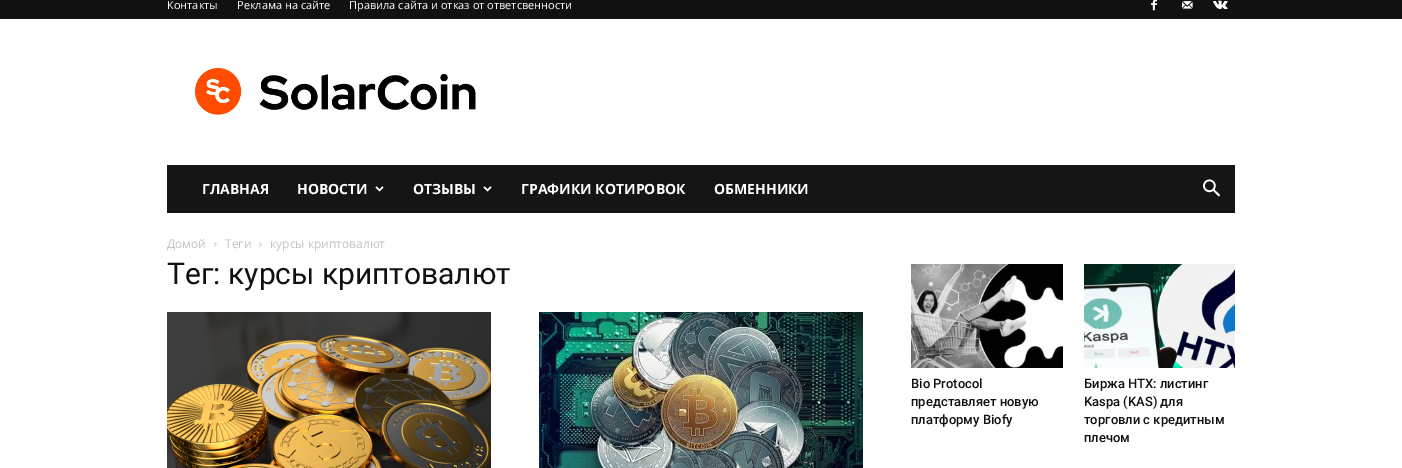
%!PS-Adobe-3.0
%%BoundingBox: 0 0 1402 468
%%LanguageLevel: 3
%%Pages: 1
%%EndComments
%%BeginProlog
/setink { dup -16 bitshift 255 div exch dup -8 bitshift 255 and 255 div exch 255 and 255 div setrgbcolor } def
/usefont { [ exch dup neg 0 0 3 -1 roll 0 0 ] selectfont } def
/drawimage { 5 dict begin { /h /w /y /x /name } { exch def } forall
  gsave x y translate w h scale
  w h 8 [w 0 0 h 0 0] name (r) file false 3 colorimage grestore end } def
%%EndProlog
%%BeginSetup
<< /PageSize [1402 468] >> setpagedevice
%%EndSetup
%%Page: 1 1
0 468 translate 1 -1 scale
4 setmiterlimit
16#FFFFFF setink
0 0 1402 468 rectfill
16#111111 setink
0 0 1402 19 rectfill
/OpenSans-Regular 11 usefont
16#FFFFFF setink
[
    [(Контакты) 167 9]
    [(Реклама на сайте) 237 9]
    [(Правила сайта и отказ от ответсвенности) 349 9]
] { aload pop moveto show } forall
(img1.raw) 1151 0 6 11 drawimage
(img2.raw) 1182 1 11 8 drawimage
(img3.raw) 1213 0 15 10 drawimage
(img4.raw) 195 68 281 47 drawimage
16#151515 setink
167 165 1068 48 rectfill
/OpenSans-Bold 14 usefont
16#FFFFFF setink
202 194 moveto (ГЛАВНАЯ) show
297 194 moveto (НОВОСТИ) show
(img5.raw) 375 186 9 6 drawimage
413 194 moveto (ОТЗЫВЫ) show
(img5.raw) 483 186 9 6 drawimage
521 194 moveto (ГРАФИКИ КОТИРОВОК) show
714 194 moveto (ОБМЕННИКИ) show
(img6.raw) 1203 179 17 18 drawimage
/OpenSans-Regular 12 usefont
16#C3C3C3 setink
167 248 moveto (Домой) show
(img7.raw) 214 242 3 5 drawimage
225 248 moveto (Теги) show
(img7.raw) 259 242 3 5 drawimage
270 248 moveto (курсы криптовалют) show
/Roboto-Regular 30 usefont
16#111111 setink
167 284 moveto (Тег: курсы криптовалют) show
(img8.raw) 167 312 324 156 drawimage
(img9.raw) 539 312 324 156 drawimage
(img10.raw) 911 264 152 104 drawimage
/Roboto-Medium 13 usefont
[
    [(Bio Protocol) 911 388]
    [(представляет новую) 911 406]
    [(платформу Biofy) 911 424]
] { aload pop moveto show } forall
(img11.raw) 1084 264 151 104 drawimage
[
    [(Биржа HTX: листинг) 1084 388]
    [(Kaspa \(KAS\) для) 1084 406]
    [(торговли с кредитным) 1084 424]
    [(плечом) 1084 442]
] { aload pop moveto show } forall
showpage
%%EOF
